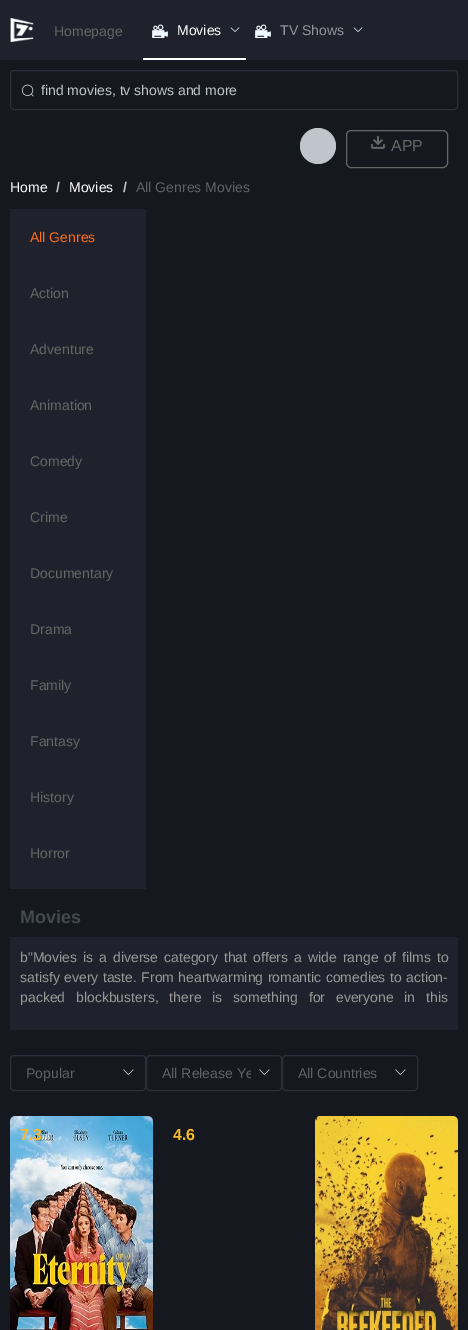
%!PS-Adobe-3.0
%%BoundingBox: 0 0 468 1330
%%LanguageLevel: 3
%%Pages: 1
%%EndComments
%%BeginProlog
/setink { dup -16 bitshift 255 div exch dup -8 bitshift 255 and 255 div exch 255 and 255 div setrgbcolor } def
/usefont { [ exch dup neg 0 0 3 -1 roll 0 0 ] selectfont } def
/disc { newpath 0 360 arc closepath } def
/rrect { 5 dict begin { /r /h /w /y /x } { exch def } forall
  x r add y moveto x w add y 2 copy h add r arct x w add y h add x 1 index r arct
  x y h add x y r arct x y 2 copy exch w add exch r arct closepath end } def
/drawimage { 5 dict begin { /h /w /y /x /name } { exch def } forall
  gsave x y translate w h scale
  w h 8 [w 0 0 h 0 0] name (r) file false 3 colorimage grestore end } def
%%EndProlog
%%BeginSetup
<< /PageSize [468 1330] >> setpagedevice
%%EndSetup
%%Page: 1 1
0 1330 translate 1 -1 scale
4 setmiterlimit
16#161820 setink
0 0 468 1330 rectfill
16#1F222C setink
0 0 468 60 rectfill
(img1.raw) 10 18 24 24 drawimage
/LiberationSans-Regular 14 usefont
16#666666 setink
54 36 moveto (Homepage) show
16#FFFFFF setink
143 58 103 2 rectfill
(img2.raw) 152 24 16 14 drawimage
177 35 moveto (Movies) show
(img3.raw) 230 27 10 5 drawimage
(img2.raw) 255 24 16 14 drawimage
16#909399 setink
280 35 moveto (TV Shows) show
(img3.raw) 353 27 10 5 drawimage
16#2B2F3C setink
10.5 70.5 447 39 3.5 rrect stroke
(img4.raw) 21 84 13 13 drawimage
16#C0C4CC setink
41 95 moveto (find movies, tv shows and more) show
318 146 18 disc fill
16#666666 setink
346.5 130.5 101 37 4.5 rrect stroke
(img5.raw) 370 135 16 14 drawimage
/LiberationSans-Regular 16 usefont
391 151 moveto (APP) show
/LiberationSans-Regular 14 usefont
16#FFFFFF setink
10 192 moveto (Home) show
/LiberationSans-Bold 14 usefont
16#C0C4CC setink
56 192 moveto (/) show
/LiberationSans-Regular 14 usefont
16#FFFFFF setink
69 192 moveto (Movies) show
/LiberationSans-Bold 14 usefont
16#C0C4CC setink
123 192 moveto (/) show
/LiberationSans-Regular 14 usefont
16#606266 setink
136 192 moveto (All Genres Movies) show
16#1F222C setink
10 209 136 680 rectfill
16#FF6D1C setink
30 242 moveto (All Genres) show
16#666666 setink
[
    [(Action) 30 298]
    [(Adventure) 30 354]
    [(Animation) 30 410]
    [(Comedy) 30 466]
    [(Crime) 30 522]
    [(Documentary) 30 578]
    [(Drama) 30 634]
    [(Family) 30 690]
    [(Fantasy) 30 746]
    [(History) 30 802]
    [(Horror) 30 858]
] { aload pop moveto show } forall
/LiberationSans-Bold 18 usefont
16#42494F setink
20 923 moveto (Movies) show
16#1F222C setink
10 937 448 93 rectfill
/LiberationSans-Regular 14 usefont
16#999999 setink
20 962 moveto 2.1 0 32 (b"Movies is a diverse category that offers a wide range of films to) widthshow
20 982 moveto 0.5 0 32 (satisfy every taste. From heartwarming romantic comedies to action-) widthshow
20 1002 moveto 7 0 32 (packed blockbusters, there is something for everyone in this) widthshow
16#2B2F3C setink
10.5 1055.5 135 35 3.5 rrect stroke
16#606266 setink
26 1078 moveto (Popular) show
(img6.raw) 123 1069 11 6 drawimage
16#2B2F3C setink
146.5 1055.5 135 35 3.5 rrect stroke
gsave
162 1055 89 36 rectclip
16#606266 setink
162 1078 moveto (All Release Ye) show
grestore
(img6.raw) 259 1069 11 6 drawimage
282.5 1055.5 135 35 3.5 rrect stroke
16#606266 setink
298 1078 moveto (All Countries) show
(img6.raw) 395 1069 11 6 drawimage
(img7.raw) 10 1116 143 214 drawimage
/LiberationSans-Bold 16 usefont
16#F7BA2A setink
20 1140 moveto (7.3) show
173 1140 moveto (4.6) show
(img8.raw) 315 1116 143 214 drawimage
showpage
%%EOF
